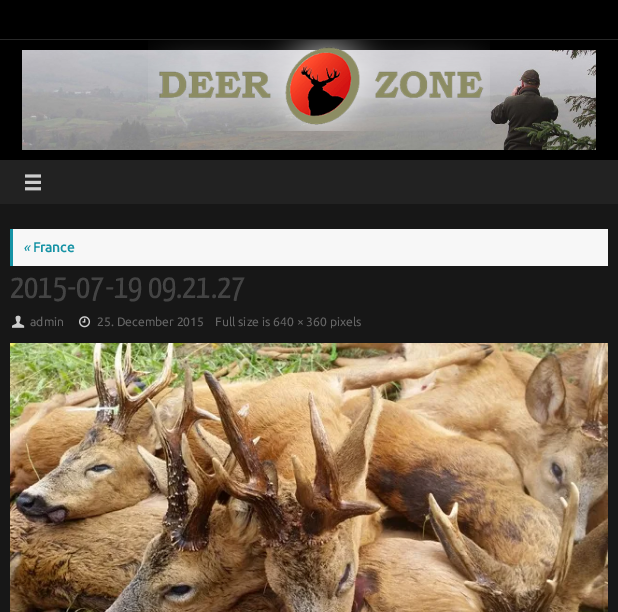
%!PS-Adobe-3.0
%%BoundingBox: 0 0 618 612
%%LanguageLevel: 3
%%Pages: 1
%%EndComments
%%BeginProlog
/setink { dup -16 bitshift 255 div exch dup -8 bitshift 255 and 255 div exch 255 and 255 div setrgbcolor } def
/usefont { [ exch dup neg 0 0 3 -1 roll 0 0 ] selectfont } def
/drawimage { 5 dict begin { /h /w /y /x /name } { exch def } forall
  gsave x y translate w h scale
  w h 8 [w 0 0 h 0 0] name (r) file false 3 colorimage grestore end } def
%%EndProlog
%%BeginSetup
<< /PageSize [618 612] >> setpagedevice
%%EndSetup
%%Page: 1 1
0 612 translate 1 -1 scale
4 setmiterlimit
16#000000 setink
0 0 618 612 rectfill
16#282828 setink
0 39 618 1 rectfill
(img2.raw) 22 50 574 100 drawimage
(img1.raw) 148 40 342 91 drawimage
16#222222 setink
0 160 618 44 rectfill
(img3.raw) 25 174 16 17 drawimage
[
    [0 204 618 408 16#171717]
    [13 229 595 37 16#F7F7F7]
    [10 229 3 37 16#1693A5]
] { aload pop setink rectfill } forall
/Ubuntu-Italic 13.5 usefont
23 252 moveto («) show
/Ubuntu-Bold 13.5 usefont
33 252 moveto (France) show
/YanoneKaffeesatz-Regular 34 usefont
16#444444 setink
10 298 moveto (2015-07-19 09.21.27) show
(img4.raw) 12 315 13 13 drawimage
/Ubuntu-Regular 12.2 usefont
16#666666 setink
30 326 moveto (admin) show
(img5.raw) 79 316 12 12 drawimage
97 326 moveto (25. December 2015) show
215 326 moveto (Full size is 640 × 360 pixels) show
(img6.raw) 10 343 598 269 drawimage
showpage
%%EOF
